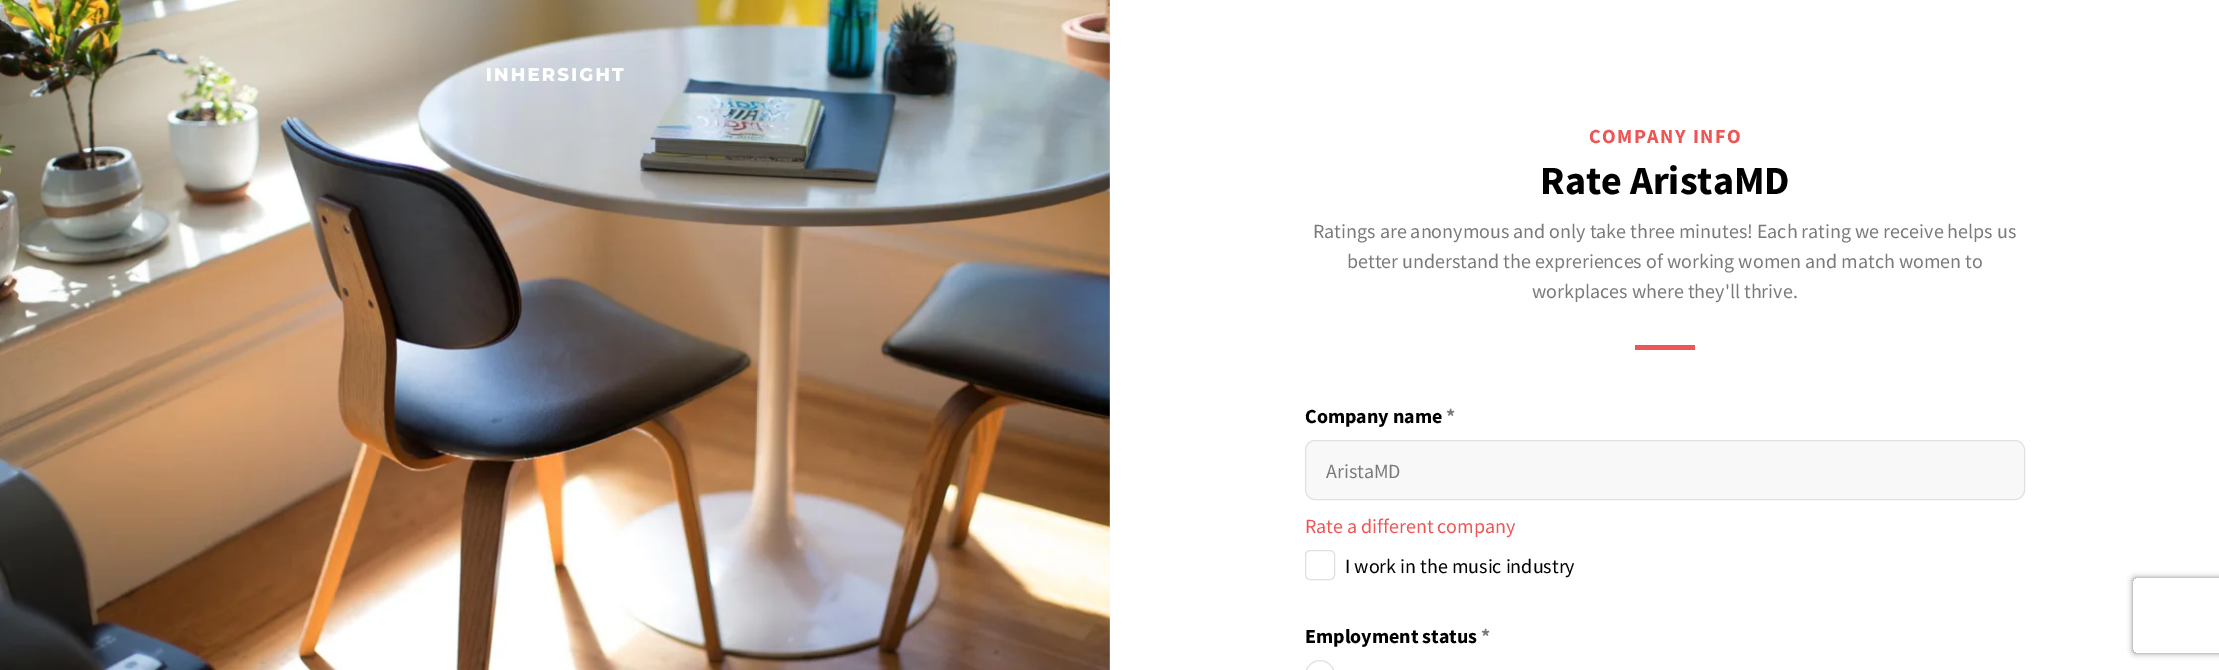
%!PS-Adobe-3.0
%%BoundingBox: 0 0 2219 670
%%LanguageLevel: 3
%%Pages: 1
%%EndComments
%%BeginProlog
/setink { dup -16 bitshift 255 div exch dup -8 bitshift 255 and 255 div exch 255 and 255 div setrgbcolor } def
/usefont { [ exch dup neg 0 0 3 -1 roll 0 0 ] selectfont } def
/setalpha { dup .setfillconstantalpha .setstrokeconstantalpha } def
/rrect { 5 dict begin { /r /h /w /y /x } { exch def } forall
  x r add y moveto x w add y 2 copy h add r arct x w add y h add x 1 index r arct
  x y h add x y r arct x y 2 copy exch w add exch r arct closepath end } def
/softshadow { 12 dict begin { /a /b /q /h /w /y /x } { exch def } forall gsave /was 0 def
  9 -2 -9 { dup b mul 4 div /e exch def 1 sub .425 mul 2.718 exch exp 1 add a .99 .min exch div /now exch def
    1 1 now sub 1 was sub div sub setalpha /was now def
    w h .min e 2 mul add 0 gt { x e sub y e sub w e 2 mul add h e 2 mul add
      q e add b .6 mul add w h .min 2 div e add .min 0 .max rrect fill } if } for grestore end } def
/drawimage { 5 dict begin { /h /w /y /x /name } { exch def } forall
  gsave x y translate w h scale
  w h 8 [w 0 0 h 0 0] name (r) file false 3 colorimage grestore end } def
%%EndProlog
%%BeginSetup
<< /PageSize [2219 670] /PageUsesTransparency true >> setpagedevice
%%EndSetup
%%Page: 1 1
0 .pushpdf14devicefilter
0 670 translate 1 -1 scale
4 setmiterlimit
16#FFFFFF setink
0 0 2219 670 rectfill
(img1.raw) 0 0 1110 670 drawimage
(img2.raw) 487 67 137 15 drawimage
/SourceSansPro-Bold 20 usefont
16#EE5555 setink
1589 143 moveto 1.5 0 (COMPANY INFO) ashow
/SourceSansPro-Bold 40 usefont
16#000000 setink
1540 194 moveto (Rate AristaMD) show
/SourceSansPro-Regular 20 usefont
16#7A7A7A setink
[
    [(Ratings are anonymous and only take three minutes! Each rating we receive helps us) 1313 238]
    [(better understand the expreriences of working women and match women to) 1347 268]
    [(workplaces where they'll thrive.) 1532 298]
] { aload pop moveto show } forall
16#EE5555 setink
1635 345 60 5 rectfill
/SourceSansPro-Bold 20 usefont
16#000000 setink
1305 423 moveto (Company name) show
16#7A7A7A setink
1446 423 moveto (*) show
16#F8F8F8 setink
1305.5 440.5 719 59 9.5 rrect gsave fill grestore
16#E0E0E0 setink
stroke
/SourceSansPro-Regular 20 usefont
16#7A7A7A setink
1326 478 moveto (AristaMD) show
16#EE5555 setink
1305 533 moveto (Rate a different company) show
16#E0E0E0 setink
1305.5 550.5 29 29 4.5 rrect stroke
16#000000 setink
1345 573 moveto (I work in the music industry) show
/SourceSansPro-Bold 20 usefont
1305 643 moveto (Employment status) show
16#7A7A7A setink
1481 643 moveto (*) show
16#E0E0E0 setink
1305.5 660.5 29 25 14.5 rrect stroke
gsave
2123 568 moveto 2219 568 lineto 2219 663 lineto 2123 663 lineto closepath 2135.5 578 moveto 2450.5 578 lineto 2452 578 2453 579 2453 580.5 curveto 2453 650.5 lineto 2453 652 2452 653 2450.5 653 curveto 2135.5 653 lineto 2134 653 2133 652 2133 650.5 curveto 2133 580.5 lineto 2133 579 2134 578 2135.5 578 curveto closepath eoclip newpath
16#808080 setink
2133 578 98 75 2.5 3 1 softshadow
grestore
.poppdf14devicefilter showpage
%%EOF
